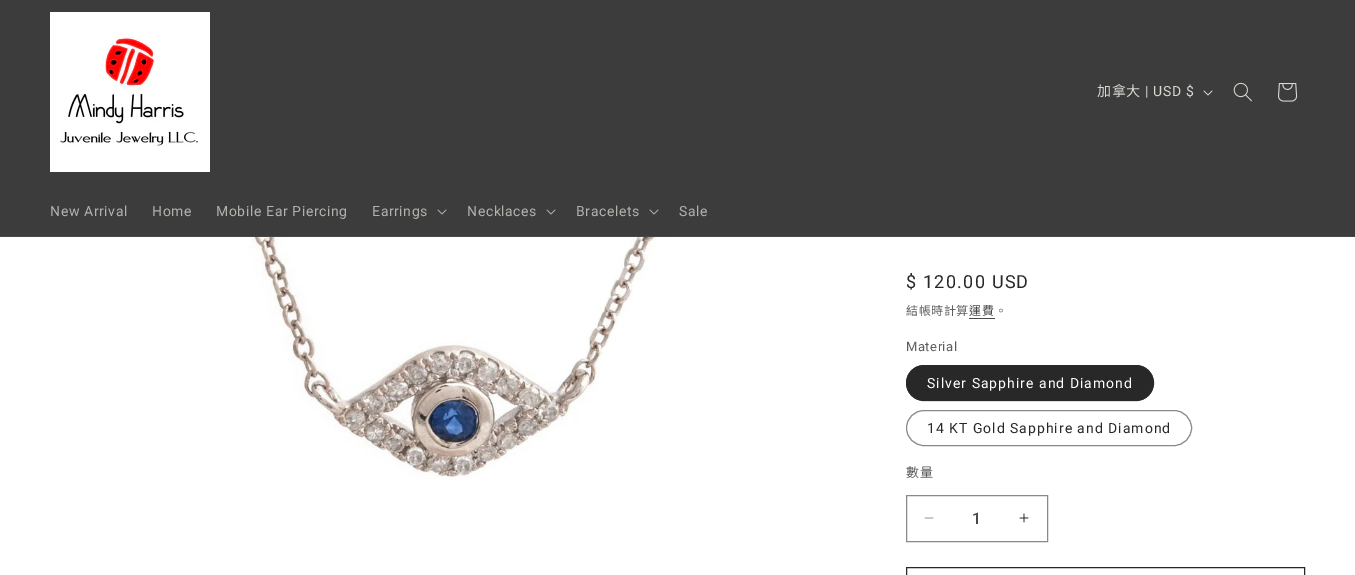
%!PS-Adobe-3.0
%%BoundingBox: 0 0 1355 575
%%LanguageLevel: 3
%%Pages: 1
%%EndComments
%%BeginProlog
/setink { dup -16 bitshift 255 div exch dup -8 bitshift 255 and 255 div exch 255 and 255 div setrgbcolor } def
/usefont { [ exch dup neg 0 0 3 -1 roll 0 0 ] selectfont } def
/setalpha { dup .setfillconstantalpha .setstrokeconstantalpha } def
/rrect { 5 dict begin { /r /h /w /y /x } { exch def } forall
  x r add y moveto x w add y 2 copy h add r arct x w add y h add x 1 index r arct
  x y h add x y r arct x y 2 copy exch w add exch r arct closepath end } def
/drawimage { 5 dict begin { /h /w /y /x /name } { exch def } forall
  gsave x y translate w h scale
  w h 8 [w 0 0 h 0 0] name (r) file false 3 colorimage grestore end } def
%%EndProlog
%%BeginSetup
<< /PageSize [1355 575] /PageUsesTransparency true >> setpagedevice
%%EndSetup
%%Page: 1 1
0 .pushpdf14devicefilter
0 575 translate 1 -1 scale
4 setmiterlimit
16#FFFFFF setink
0 0 1355 575 rectfill
16#3C3C3C setink
0 0 1355 236 rectfill
16#494848 setink
0 236 1355 1 rectfill
(img1.raw) 50 12 160 160 drawimage
/NotoSansCJKTC-Regular 14 usefont
16#D9D8D1 setink
1097 96 moveto 0.6 0 (加拿大) ashow
/Roboto-Regular 14 usefont
1145 96 moveto 0.6 0 (| USD $) ashow
(img2.raw) 1203 90 10 6 drawimage
(img3.raw) 1233 82 19 20 drawimage
(img4.raw) 1278 83 20 19 drawimage
16#B2B1AC setink
50 216 moveto 0.6 0 (New Arrival) ashow
152 216 moveto 0.6 0 (Home) ashow
216 216 moveto 0.6 0 (Mobile Ear Piercing) ashow
372 216 moveto 0.6 0 (Earrings) ashow
(img5.raw) 437 209 10 6 drawimage
467 216 moveto 0.6 0 (Necklaces) ashow
(img5.raw) 546 209 10 6 drawimage
576 216 moveto 0.6 0 (Bracelets) ashow
(img5.raw) 649 209 10 6 drawimage
679 216 moveto 0.6 0 (Sale) ashow
(img6.raw) 209 237 498 242 drawimage
/Roboto-Regular 18 usefont
16#282828 setink
906 288 moveto 1.25 0 ($ 120.00 USD) ashow
/NotoSansCJKTC-Regular 12 usefont
16#5E5E5E setink
906 315 moveto 0.5 0 (結帳時計算) ashow
16#484848 setink
969 315 moveto 0.5 0 (運費) ashow
969 318 26 1 rectfill
16#5E5E5E setink
995 315 moveto 0.5 0 (。) ashow
/Roboto-Regular 13 usefont
906 351 moveto 0.5 0 (Material) ashow
16#282828 setink
906 365 248 36 18 rrect fill
0.55 setalpha
906.5 365.5 247 35 17.5 rrect stroke
/Roboto-Regular 14 usefont
1 setalpha
16#FFFFFF setink
927 388 moveto 1 0 (Silver Sapphire and Diamond) ashow
16#898989 setink
906.5 410.5 285 35 17.5 rrect stroke
16#282828 setink
927 433 moveto 1 0 (14 KT Gold Sapphire and Diamond) ashow
/NotoSansCJKTC-Regular 13 usefont
16#5E5E5E setink
906 477 moveto 0.5 0 (數量) ashow
(img7.raw) 924 517 10 2 drawimage
(img8.raw) 1019 513 10 10 drawimage
16#898989 setink
906.5 495.5 141 46 rectstroke
/Roboto-Medium 16 usefont
16#484848 setink
972 524 moveto (1) show
16#282828 setink
906.5 567.5 398 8 rectstroke
.poppdf14devicefilter showpage
%%EOF
